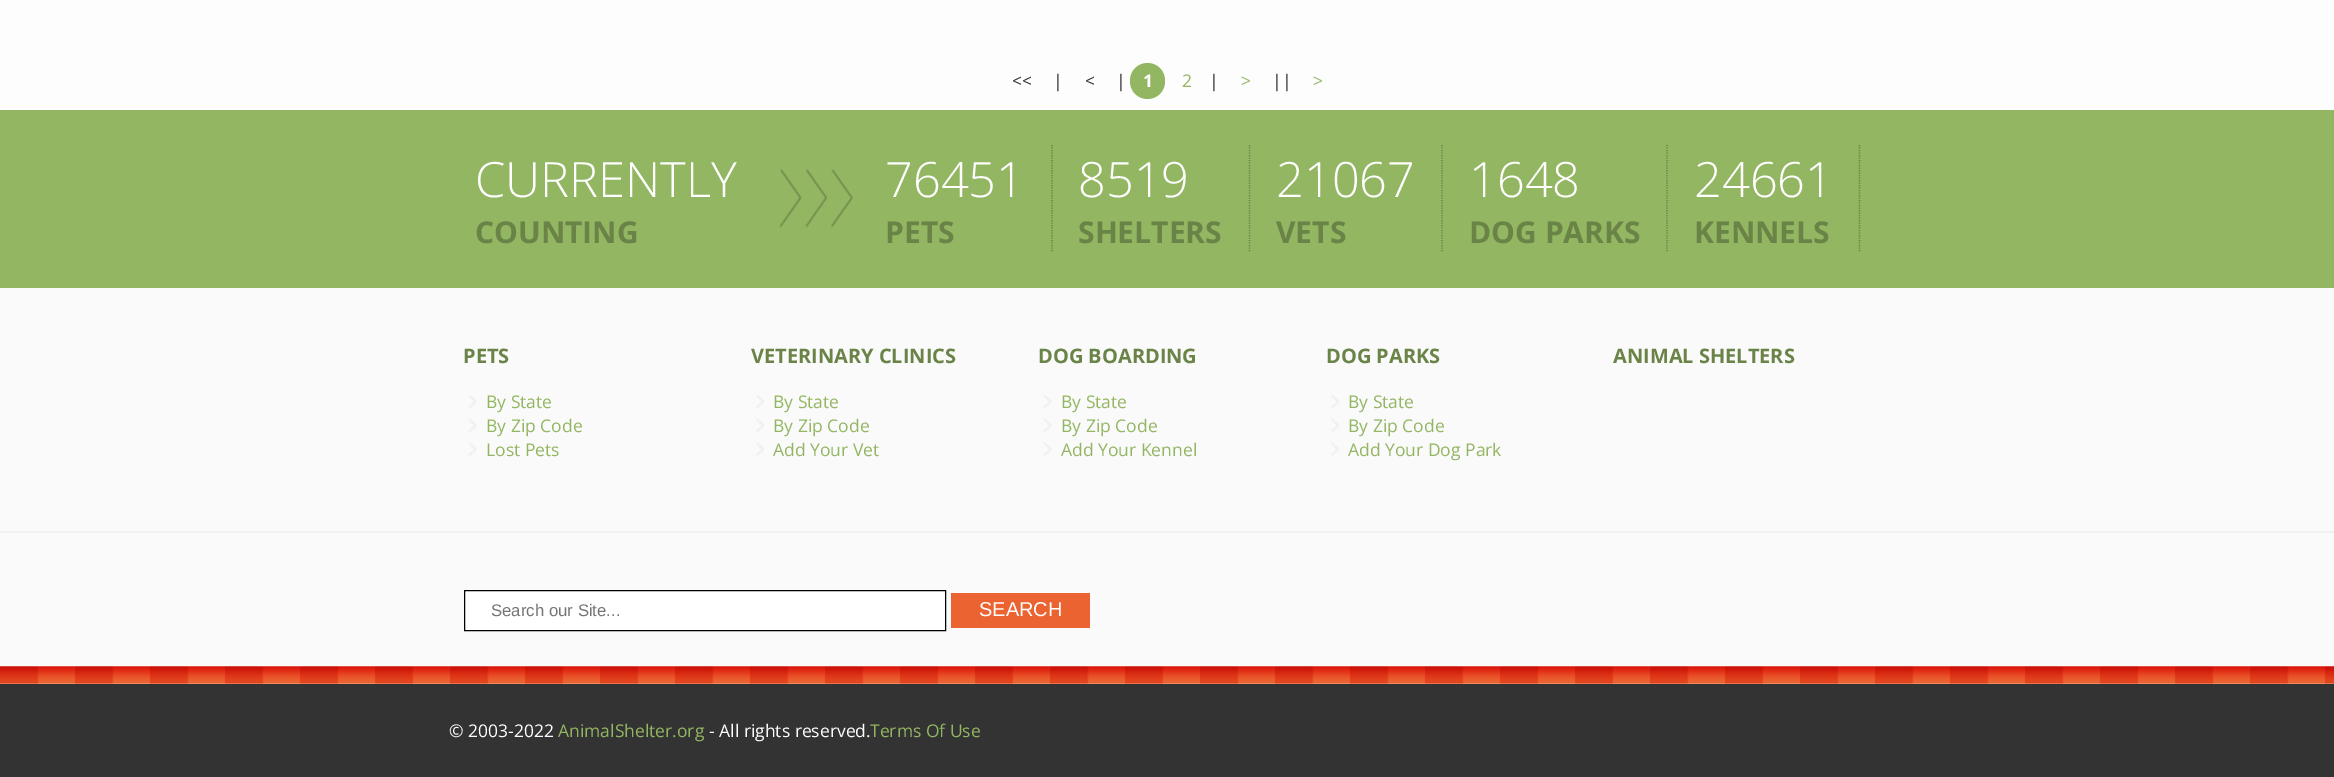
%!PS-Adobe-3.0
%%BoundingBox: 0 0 2334 777
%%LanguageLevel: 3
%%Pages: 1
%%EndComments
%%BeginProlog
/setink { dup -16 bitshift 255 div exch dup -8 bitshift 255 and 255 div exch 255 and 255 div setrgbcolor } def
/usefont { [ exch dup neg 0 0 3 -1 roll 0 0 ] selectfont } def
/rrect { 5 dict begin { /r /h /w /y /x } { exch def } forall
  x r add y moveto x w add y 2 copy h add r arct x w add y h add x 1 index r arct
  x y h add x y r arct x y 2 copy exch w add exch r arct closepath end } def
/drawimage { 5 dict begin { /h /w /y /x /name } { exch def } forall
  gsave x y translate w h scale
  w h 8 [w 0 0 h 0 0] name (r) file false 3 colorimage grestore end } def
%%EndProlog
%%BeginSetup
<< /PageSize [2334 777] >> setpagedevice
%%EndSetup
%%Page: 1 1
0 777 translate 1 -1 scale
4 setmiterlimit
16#FDFDFD setink
0 0 2334 777 rectfill
/OpenSans-Regular 17.5 usefont
16#333333 setink
[
    [(<<) 1012 87]
    [(|) 1053 87]
    [(<) 1085 87]
    [(|) 1116 87]
] { aload pop moveto show } forall
16#93B662 setink
1130 63 35 36 17.5 rrect fill
/OpenSans-Bold 17.5 usefont
16#FFFFFF setink
1143 87 moveto (1) show
/OpenSans-Regular 17.5 usefont
16#93B662 setink
1182 87 moveto (2) show
16#333333 setink
1209 87 moveto (|) show
16#93B662 setink
1241 87 moveto (>) show
16#333333 setink
1272 87 moveto (||) show
16#93B662 setink
1313 87 moveto (>) show
0 110 2334 178 rectfill
(img1.raw) 780 169 73 59 drawimage
/OpenSans-Light 48.75 usefont
16#FFFFFF setink
475 197 moveto (CURRENTLY) show
/OpenSans-Bold 30 usefont
16#6A8347 setink
475 243 moveto (COUNTING) show
1.2 setlinewidth
[1.25 1.25] 0 setdash
1052 145 moveto 1052 252.5 lineto stroke
/OpenSans-Light 48.75 usefont
16#FFFFFF setink
885 197 moveto (76451) show
/OpenSans-Bold 30 usefont
16#6A8347 setink
885 243 moveto (PETS) show
1249.5 145 moveto 1249.5 252.5 lineto stroke
/OpenSans-Light 48.75 usefont
16#FFFFFF setink
1078 197 moveto (8519) show
/OpenSans-Bold 30 usefont
16#6A8347 setink
1078 243 moveto (SHELTERS) show
1442 145 moveto 1442 252.5 lineto stroke
/OpenSans-Light 48.75 usefont
16#FFFFFF setink
1276 197 moveto (21067) show
/OpenSans-Bold 30 usefont
16#6A8347 setink
1276 243 moveto (VETS) show
1667 145 moveto 1667 252.5 lineto stroke
/OpenSans-Light 48.75 usefont
16#FFFFFF setink
1469 197 moveto (1648) show
/OpenSans-Bold 30 usefont
16#6A8347 setink
1469 243 moveto (DOG PARKS) show
1859.5 145 moveto 1859.5 252.5 lineto stroke
/OpenSans-Light 48.75 usefont
16#FFFFFF setink
1694 197 moveto (24661) show
/OpenSans-Bold 30 usefont
16#6A8347 setink
1694 243 moveto (KENNELS) show
16#FAFAFA setink
0 288 2334 378 rectfill
/OpenSans-Bold 20 usefont
16#6A8347 setink
463 363 moveto (PETS) show
(img2.raw) 468 395 9 14 drawimage
/OpenSans-Regular 17.5 usefont
16#93B662 setink
486 408 moveto (By State) show
(img3.raw) 468 418 9 14 drawimage
486 432 moveto (By Zip Code) show
(img4.raw) 468 442 9 14 drawimage
486 456 moveto (Lost Pets) show
/OpenSans-Bold 20 usefont
16#6A8347 setink
751 363 moveto (VETERINARY CLINICS) show
(img5.raw) 756 395 9 14 drawimage
/OpenSans-Regular 17.5 usefont
16#93B662 setink
773 408 moveto (By State) show
(img6.raw) 756 418 9 14 drawimage
773 432 moveto (By Zip Code) show
(img7.raw) 756 442 8 14 drawimage
773 456 moveto (Add Your Vet) show
/OpenSans-Bold 20 usefont
16#6A8347 setink
1038 363 moveto (DOG BOARDING) show
(img2.raw) 1043 395 9 14 drawimage
/OpenSans-Regular 17.5 usefont
16#93B662 setink
1061 408 moveto (By State) show
(img3.raw) 1043 418 9 14 drawimage
1061 432 moveto (By Zip Code) show
(img4.raw) 1043 442 9 14 drawimage
1061 456 moveto (Add Your Kennel) show
/OpenSans-Bold 20 usefont
16#6A8347 setink
1326 363 moveto (DOG PARKS) show
(img5.raw) 1331 395 9 14 drawimage
/OpenSans-Regular 17.5 usefont
16#93B662 setink
1348 408 moveto (By State) show
(img6.raw) 1331 418 9 14 drawimage
1348 432 moveto (By Zip Code) show
(img7.raw) 1331 442 8 14 drawimage
1348 456 moveto (Add Your Dog Park) show
/OpenSans-Bold 20 usefont
16#6A8347 setink
1613 363 moveto (ANIMAL SHELTERS) show
16#E5E5E5 setink
0 532 moveto 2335 532 lineto stroke
16#FFFFFF setink
464.5 590.5 moveto 945.5 590.5 lineto 945.5 630.5 lineto 464.5 630.5 lineto closepath gsave fill grestore
16#000000 setink
1 setlinewidth
[] 0 setdash
stroke
/LiberationSans-Regular 16.75 usefont
16#757575 setink
491 616 moveto (Search our Site...) show
16#EB6331 setink
951 593 139 35 rectfill
/LiberationSans-Regular 20 usefont
16#FFFFFF setink
979 616 moveto (SEARCH) show
(img8.raw) 0 666 2334 18 drawimage
16#333333 setink
0 684 2334 93 rectfill
/OpenSans-Regular 17.5 usefont
16#FFFFFF setink
449 737 moveto (© 2003-2022) show
16#93B662 setink
558 737 moveto (AnimalShelter.org) show
16#FFFFFF setink
709 737 moveto (- All rights reserved.) show
16#93B662 setink
870 737 moveto (Terms Of Use) show
showpage
%%EOF
